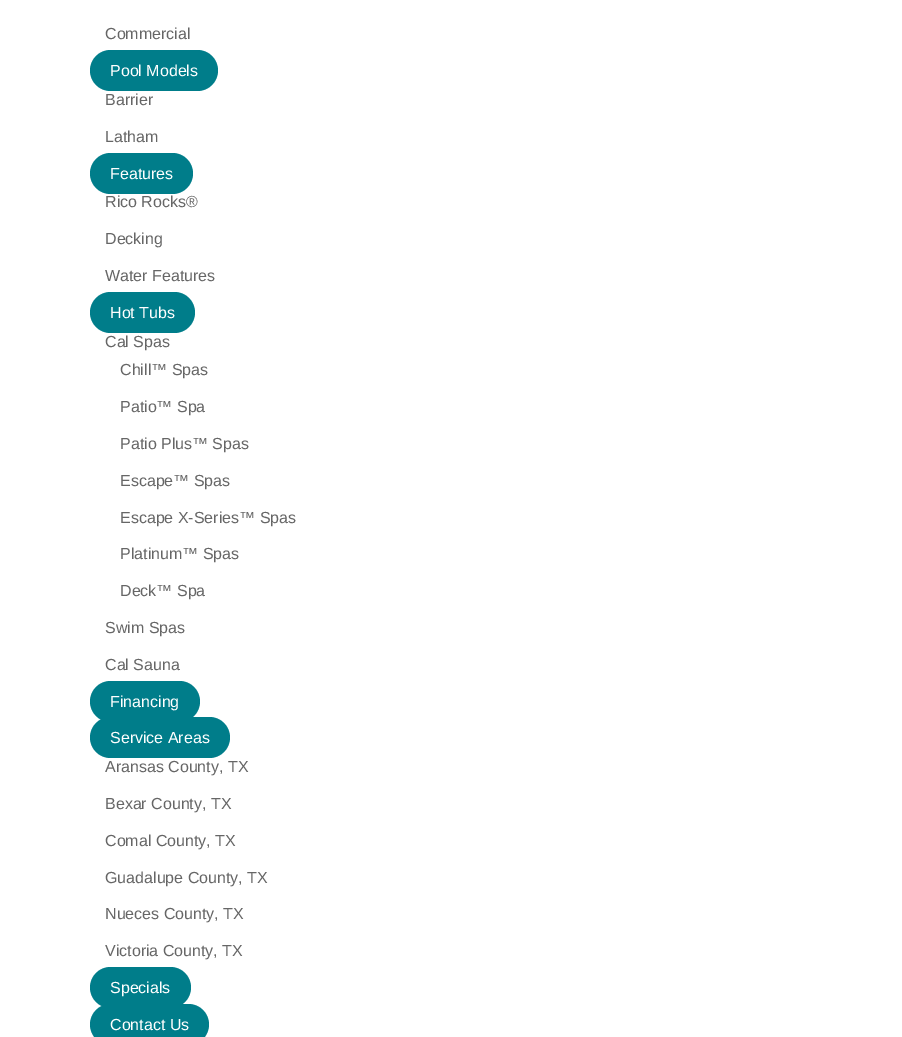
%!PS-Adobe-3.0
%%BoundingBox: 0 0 902 1037
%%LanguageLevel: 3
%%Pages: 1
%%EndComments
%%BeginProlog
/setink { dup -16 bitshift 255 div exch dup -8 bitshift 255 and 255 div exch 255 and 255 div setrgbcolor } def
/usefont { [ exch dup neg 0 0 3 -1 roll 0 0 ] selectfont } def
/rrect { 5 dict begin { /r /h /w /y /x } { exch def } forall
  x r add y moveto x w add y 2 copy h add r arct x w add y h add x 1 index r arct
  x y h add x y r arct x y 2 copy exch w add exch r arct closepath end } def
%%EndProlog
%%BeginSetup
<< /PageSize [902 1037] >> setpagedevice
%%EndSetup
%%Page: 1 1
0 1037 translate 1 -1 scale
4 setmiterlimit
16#FFFFFF setink
0 0 902 1037 rectfill
/LiberationSans-Regular 16 usefont
16#666666 setink
105 39 moveto (Commercial) show
16#007D8A setink
90 50 128 41 20.5 rrect fill
16#FFFFFF setink
110 76 moveto (Pool Models) show
16#666666 setink
105 105 moveto (Barrier) show
105 142 moveto (Latham) show
16#007D8A setink
90 153 103 41 20.5 rrect fill
16#FFFFFF setink
110 179 moveto (Features) show
16#666666 setink
[
    [(Rico Rocks®) 105 207]
    [(Decking) 105 244]
    [(Water Features) 105 281]
] { aload pop moveto show } forall
16#007D8A setink
90 292 105 41 20.5 rrect fill
16#FFFFFF setink
110 318 moveto (Hot Tubs) show
16#666666 setink
[
    [(Cal Spas) 105 347]
    [(Chill™ Spas) 120 375]
    [(Patio™ Spa) 120 412]
    [(Patio Plus™ Spas) 120 449]
    [(Escape™ Spas) 120 486]
    [(Escape X-Series™ Spas) 120 523]
    [(Platinum™ Spas) 120 559]
    [(Deck™ Spa) 120 596]
    [(Swim Spas) 105 633]
    [(Cal Sauna) 105 670]
] { aload pop moveto show } forall
16#007D8A setink
90 681 110 41 20.5 rrect fill
16#FFFFFF setink
110 707 moveto (Financing) show
16#007D8A setink
90 717 140 41 20.5 rrect fill
16#FFFFFF setink
110 743 moveto (Service Areas) show
16#666666 setink
[
    [(Aransas County, TX) 105 772]
    [(Bexar County, TX) 105 809]
    [(Comal County, TX) 105 846]
    [(Guadalupe County, TX) 105 883]
    [(Nueces County, TX) 105 919]
    [(Victoria County, TX) 105 956]
] { aload pop moveto show } forall
16#007D8A setink
90 967 101 41 20.5 rrect fill
16#FFFFFF setink
110 993 moveto (Specials) show
16#007D8A setink
90 1004 119 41 20.5 rrect fill
16#FFFFFF setink
110 1030 moveto (Contact Us) show
showpage
%%EOF
